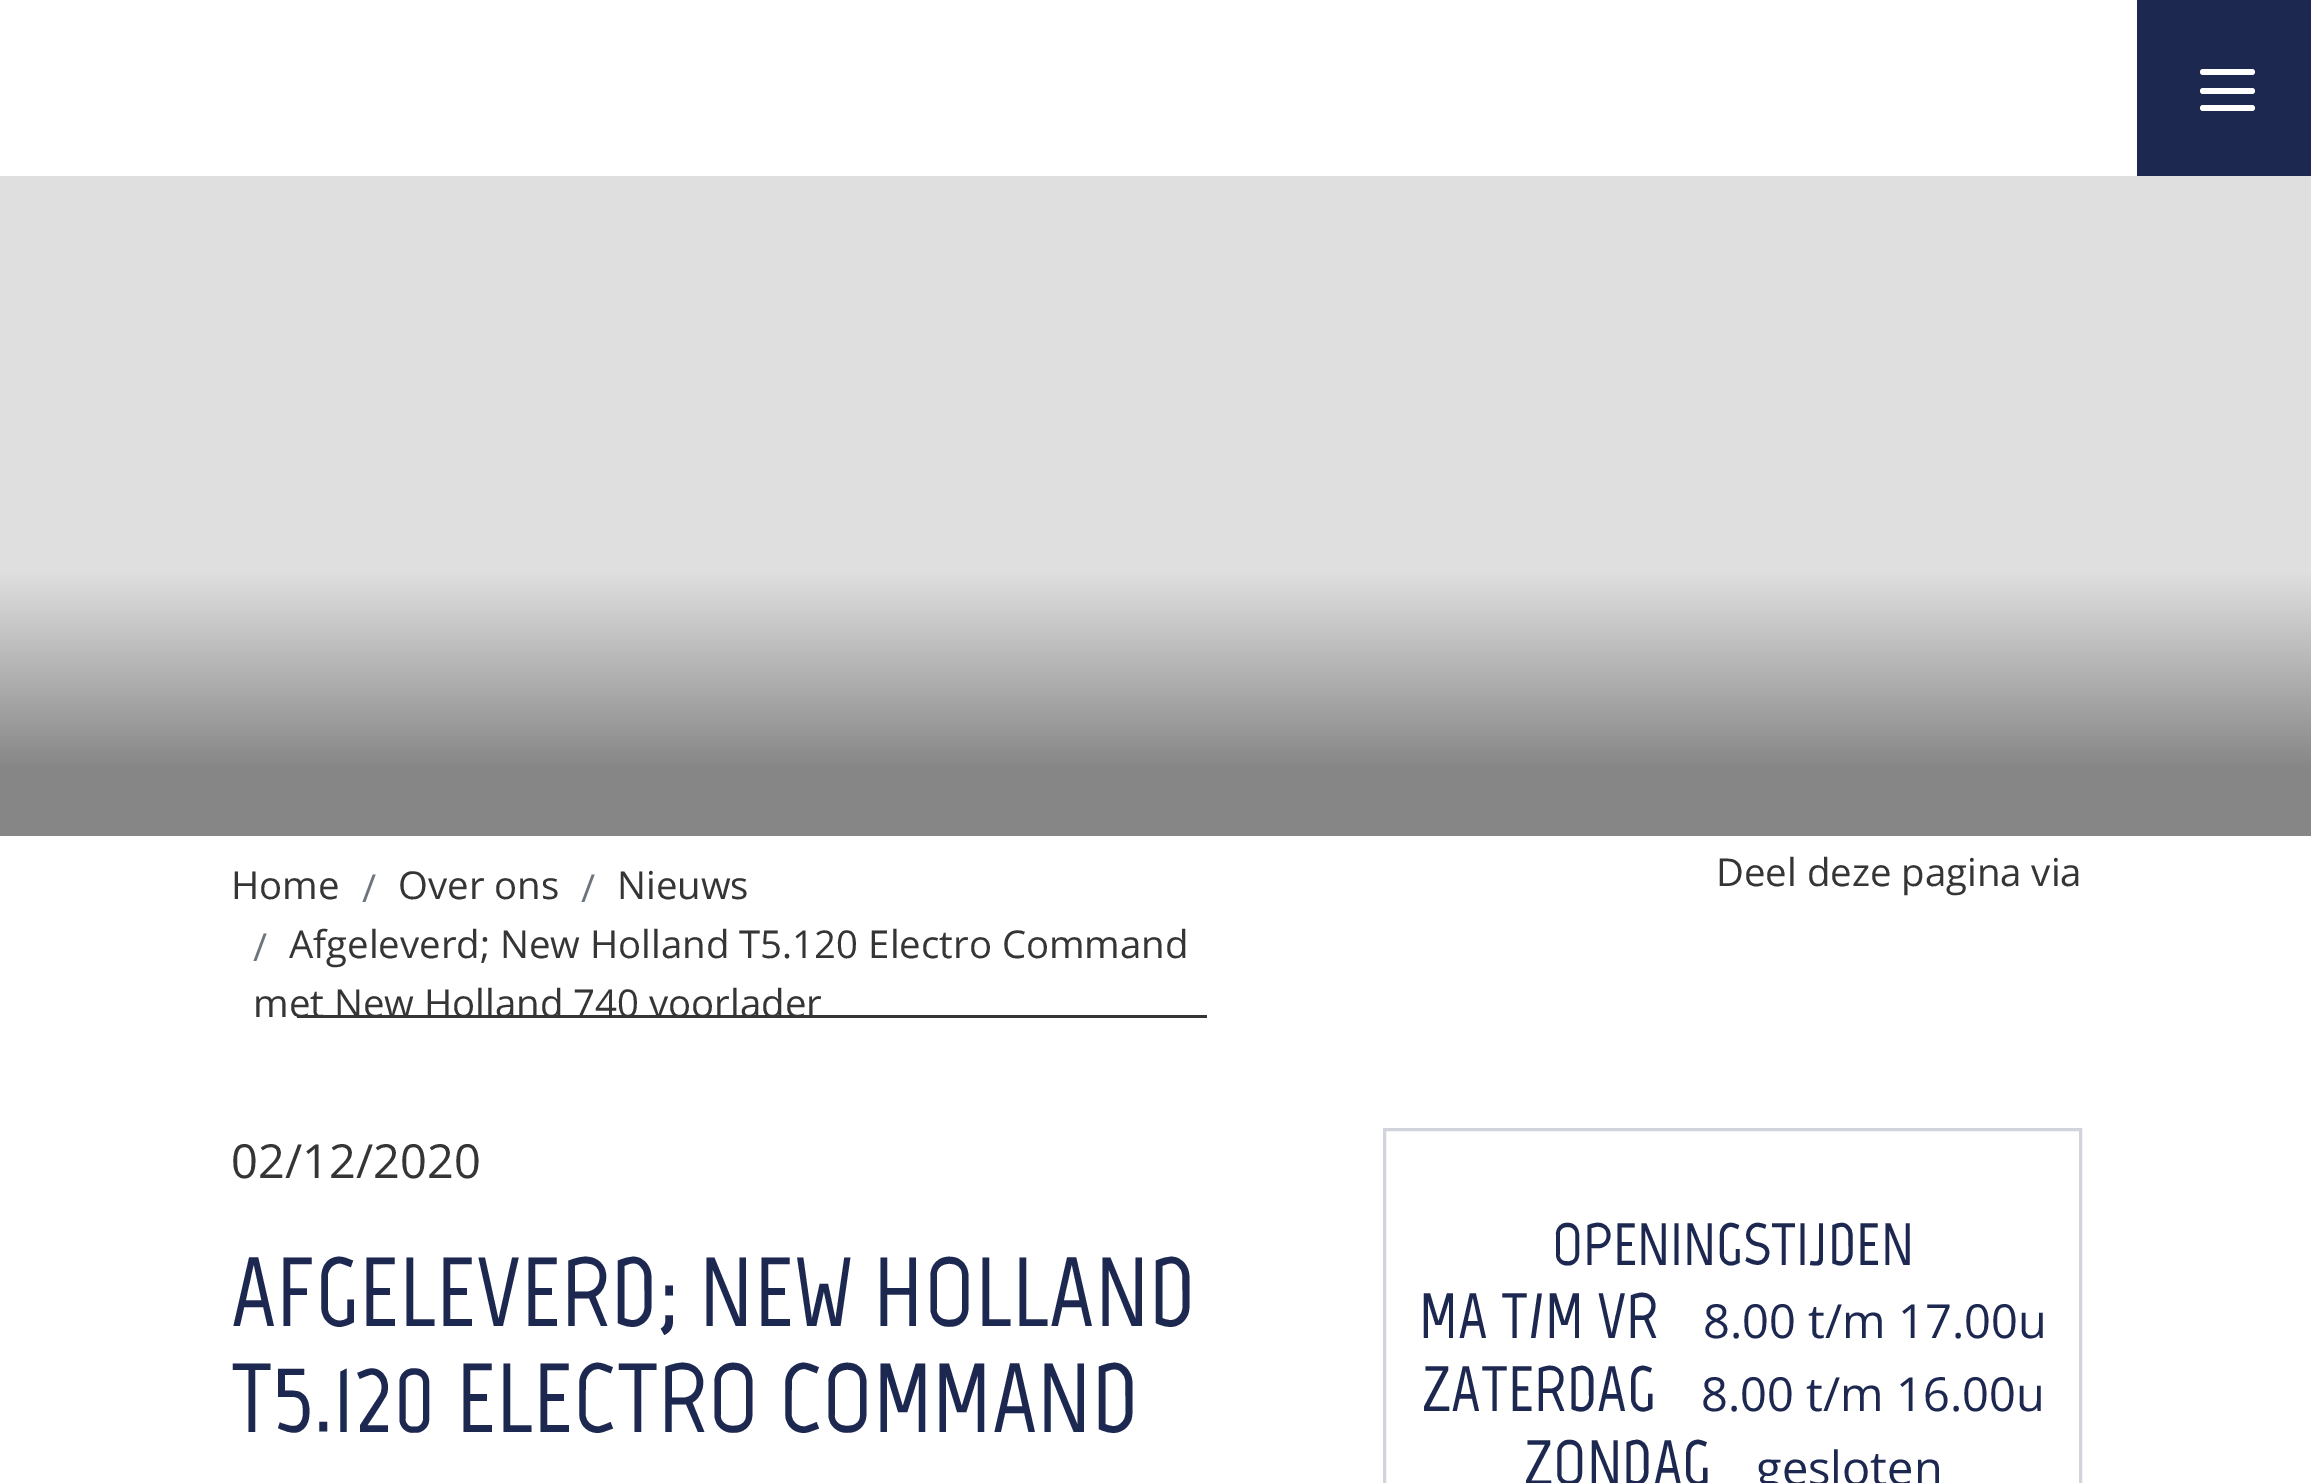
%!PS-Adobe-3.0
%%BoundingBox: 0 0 2311 1483
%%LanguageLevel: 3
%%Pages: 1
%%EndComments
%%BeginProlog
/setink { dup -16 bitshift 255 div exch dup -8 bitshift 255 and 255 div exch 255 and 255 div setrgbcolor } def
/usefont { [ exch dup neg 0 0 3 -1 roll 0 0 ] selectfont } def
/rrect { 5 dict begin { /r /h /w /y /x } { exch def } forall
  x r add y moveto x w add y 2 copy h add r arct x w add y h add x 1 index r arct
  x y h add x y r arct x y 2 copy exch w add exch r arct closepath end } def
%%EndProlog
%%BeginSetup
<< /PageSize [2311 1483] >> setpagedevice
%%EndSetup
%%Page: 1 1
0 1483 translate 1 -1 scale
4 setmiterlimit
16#FFFFFF setink
0 0 2311 1483 rectfill
16#1D2851 setink
2137 0 174 176 rectfill
16#FFFFFF setink
2200 88 55 6 3 rrect fill
2200 69 55 6 3 rrect fill
2200 105 55 6 3 rrect fill
gsave 0 176 moveto 2311 176 lineto 2311 836 lineto 0 836 lineto closepath clip newpath
<< /ShadingType 2 /ColorSpace /DeviceRGB /Coords [1156 176 1156 836] /Extend [true true] /Function << /FunctionType 3 /Domain [0 1] /Functions [<< /FunctionType 2 /Domain [0 1] /C0 [0.875 0.875 0.875] /C1 [0.875 0.875 0.875] /N 1 >> << /FunctionType 2 /Domain [0 1] /C0 [0.875 0.875 0.875] /C1 [0.525 0.525 0.525] /N 1 >> << /FunctionType 2 /Domain [0 1] /C0 [0.525 0.525 0.525] /C1 [0.525 0.525 0.525] /N 1 >>] /Bounds [0.6 0.9] /Encode [0 1 0 1 0 1] >> >> shfill grestore
/OpenSans-Regular 38.4 usefont
16#353535 setink
231 899 moveto (Home) show
16#6C757D setink
362 902 moveto (/) show
16#353535 setink
398 899 moveto (Over ons) show
16#6C757D setink
581 902 moveto (/) show
16#353535 setink
617 899 moveto (Nieuws) show
16#6C757D setink
253 961 moveto (/) show
16#353535 setink
289 958 moveto (Afgeleverd; New Holland T5.120 Electro Command) show
297 1015 910 3 rectfill
253 1017 moveto (met New Holland 740 voorlader) show
/OpenSans-Regular 47 usefont
231 1178 moveto (02/12/2020) show
/Marvel-Bold 98 usefont
16#1D2851 setink
231 1326 moveto (AFGELEVERD; NEW HOLLAND) show
231 1432 moveto (T5.120 ELECTRO COMMAND) show
/OpenSans-Regular 38.4 usefont
16#353535 setink
1716 886 moveto (Deel deze pagina via) show
16#D2D4DC setink
3 setlinewidth
1384.5 1129.5 696 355 rectstroke
/Marvel-Bold 59.75 usefont
16#1D2851 setink
1552 1265 moveto (OPENINGSTIJDEN) show
/Marvel-Bold 64 usefont
1419 1338 moveto (MA T/M VR) show
/OpenSans-Regular 47 usefont
1703 1338 moveto (8.00 t/m 17.00u) show
/Marvel-Bold 64 usefont
1422 1411 moveto (ZATERDAG) show
/OpenSans-Regular 47 usefont
1701 1411 moveto (8.00 t/m 16.00u) show
/Marvel-Bold 64 usefont
1524 1485 moveto (ZONDAG) show
/OpenSans-Regular 47 usefont
1756 1485 moveto (gesloten) show
showpage
%%EOF
